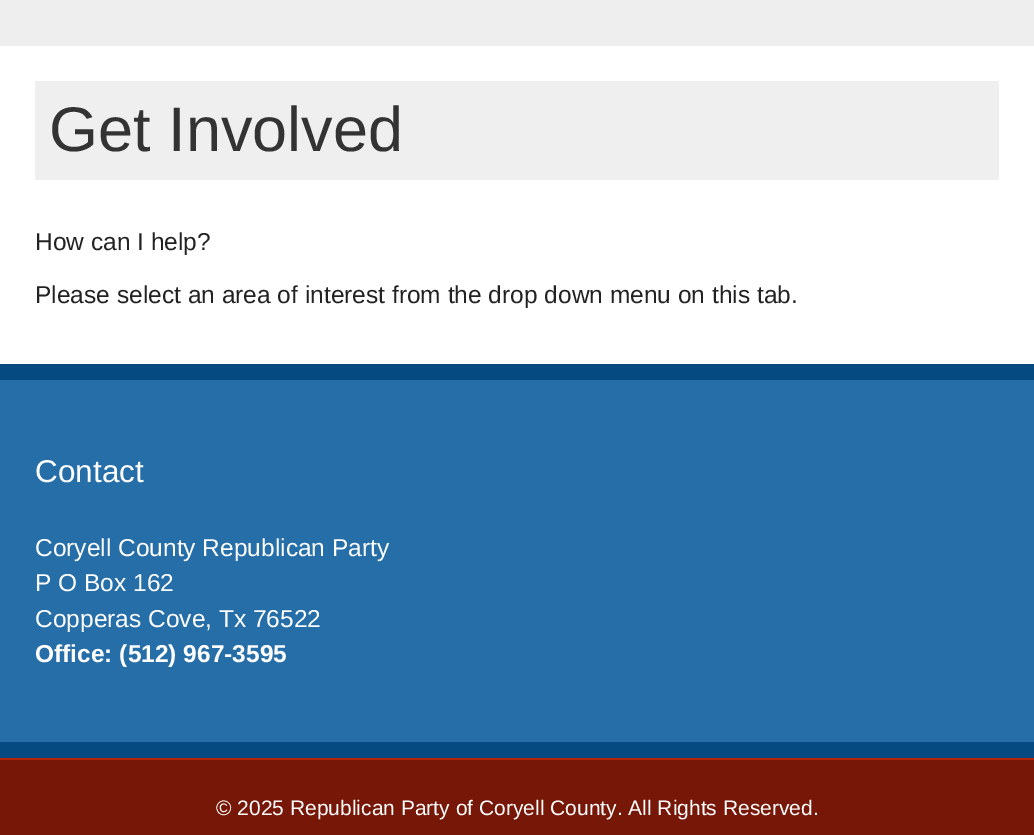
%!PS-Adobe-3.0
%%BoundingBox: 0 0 1034 835
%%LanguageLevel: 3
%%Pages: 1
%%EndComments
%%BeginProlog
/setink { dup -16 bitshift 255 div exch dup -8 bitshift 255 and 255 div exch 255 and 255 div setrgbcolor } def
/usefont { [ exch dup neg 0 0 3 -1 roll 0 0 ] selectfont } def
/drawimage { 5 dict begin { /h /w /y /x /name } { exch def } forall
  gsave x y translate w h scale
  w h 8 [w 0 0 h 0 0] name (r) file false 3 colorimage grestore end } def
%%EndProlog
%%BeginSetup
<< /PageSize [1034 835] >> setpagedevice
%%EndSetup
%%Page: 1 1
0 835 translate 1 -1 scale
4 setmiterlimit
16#761707 setink
0 0 1034 835 rectfill
(img1.raw) 0 0 1034 46 drawimage
16#FFFFFF setink
0 46 1034 318 rectfill
16#EFEFEF setink
35 81 964 99 rectfill
/LiberationSans-Regular 63 usefont
16#333333 setink
49 151 moveto (Get Involved) show
/LiberationSans-Regular 24.5 usefont
16#222222 setink
35 250 moveto (How can I help?) show
35 303 moveto (Please select an area of interest from the drop down menu on this tab.) show
[
    [0 380 1034 362 16#266EA8]
    [0 364 1034 16 16#054A81]
    [0 742 1034 16 16#054A81]
] { aload pop setink rectfill } forall
/LiberationSans-Regular 31.5 usefont
16#FFFFFF setink
35 482 moveto (Contact) show
/LiberationSans-Regular 24.5 usefont
[
    [(Coryell County Republican Party) 35 556]
    [(P O Box 162) 35 591]
    [(Copperas Cove, Tx 76522) 35 627]
] { aload pop moveto show } forall
/LiberationSans-Bold 24.5 usefont
35 662 moveto (Office: \(512\) 967-3595) show
16#B5230B setink
0 758 1034 2 rectfill
/LiberationSans-Regular 21 usefont
16#FFFFFF setink
216 815 moveto (© 2025 Republican Party of Coryell County. All Rights Reserved.) show
showpage
%%EOF
